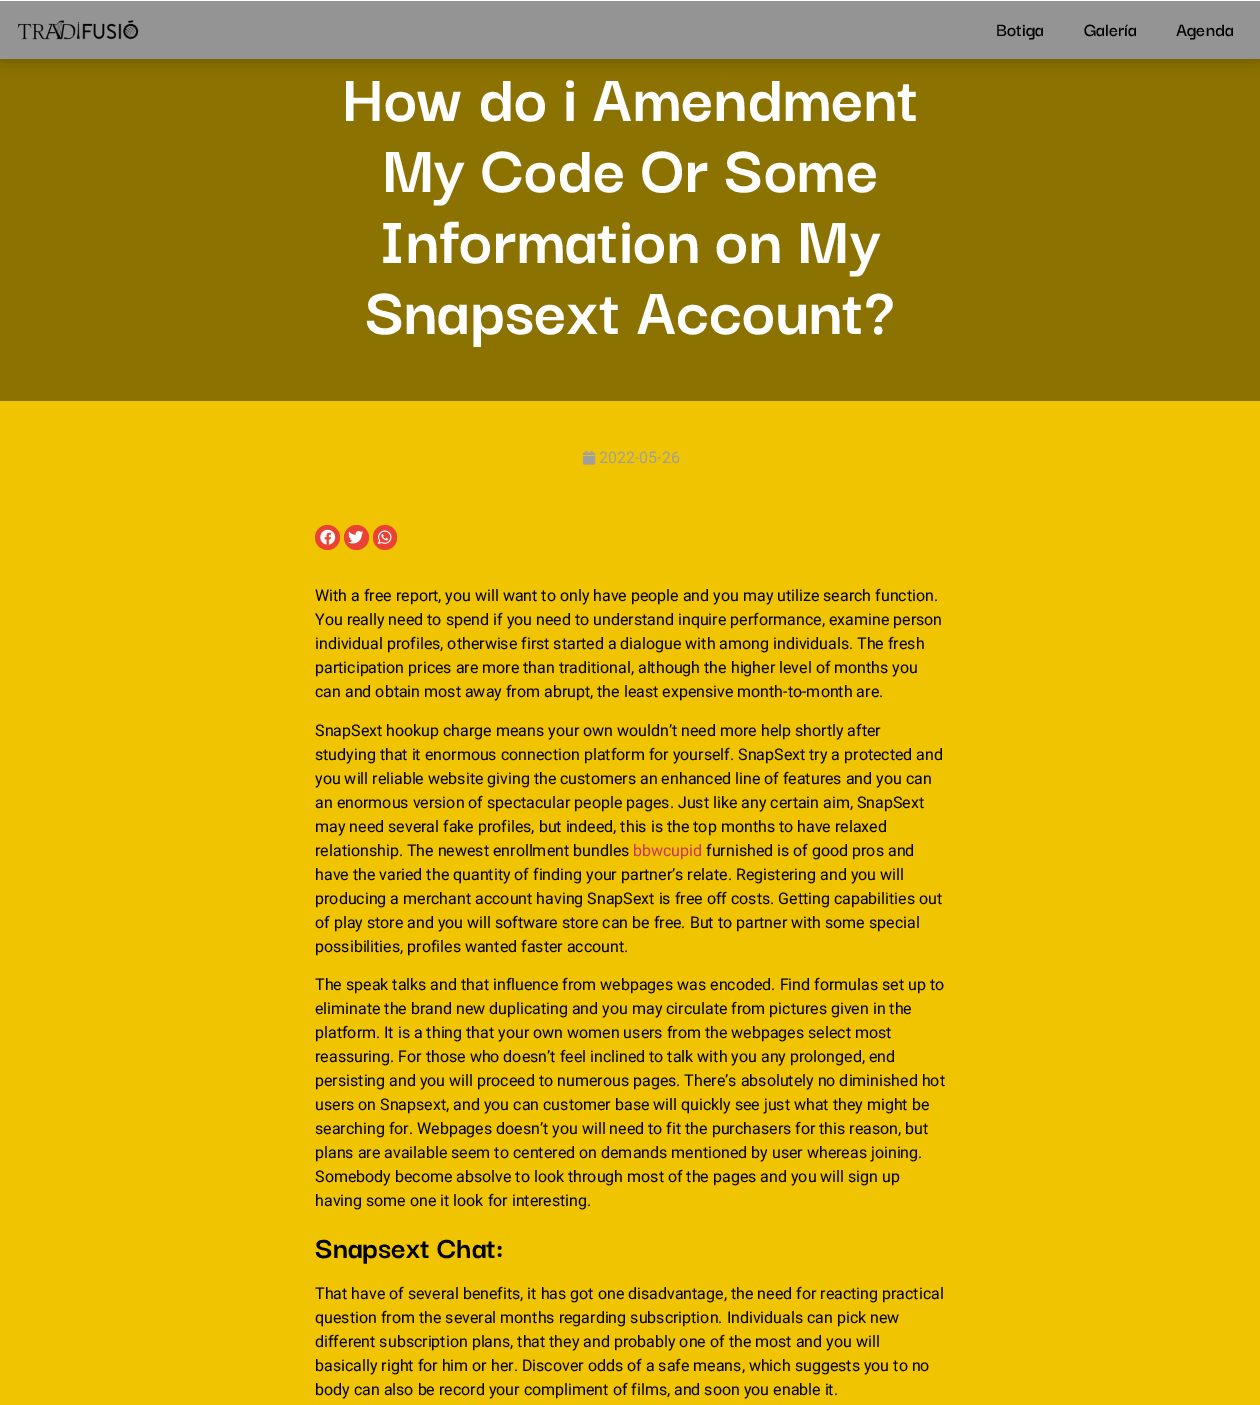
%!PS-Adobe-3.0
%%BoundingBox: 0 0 1260 1405
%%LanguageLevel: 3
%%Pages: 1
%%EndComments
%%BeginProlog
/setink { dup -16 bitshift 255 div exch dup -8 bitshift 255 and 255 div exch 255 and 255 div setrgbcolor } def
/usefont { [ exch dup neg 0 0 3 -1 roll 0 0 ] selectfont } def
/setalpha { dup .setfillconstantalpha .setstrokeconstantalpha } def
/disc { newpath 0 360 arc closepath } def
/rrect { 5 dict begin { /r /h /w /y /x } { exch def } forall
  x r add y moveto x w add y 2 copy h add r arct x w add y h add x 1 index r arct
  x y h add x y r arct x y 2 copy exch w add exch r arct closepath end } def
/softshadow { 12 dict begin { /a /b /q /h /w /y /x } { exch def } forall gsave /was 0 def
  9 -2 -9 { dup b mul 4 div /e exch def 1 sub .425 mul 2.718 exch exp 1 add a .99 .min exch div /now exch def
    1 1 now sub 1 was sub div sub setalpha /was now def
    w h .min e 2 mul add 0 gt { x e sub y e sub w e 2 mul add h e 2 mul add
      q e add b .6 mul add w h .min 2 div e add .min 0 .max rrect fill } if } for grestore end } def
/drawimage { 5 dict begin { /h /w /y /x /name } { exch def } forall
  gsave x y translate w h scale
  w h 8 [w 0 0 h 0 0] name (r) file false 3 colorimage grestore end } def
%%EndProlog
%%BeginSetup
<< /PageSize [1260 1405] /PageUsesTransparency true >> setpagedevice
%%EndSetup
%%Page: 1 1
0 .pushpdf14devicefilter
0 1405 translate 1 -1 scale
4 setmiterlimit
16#F1C401 setink
0 0 1260 1405 rectfill
16#8C7201 setink
0 59 1260 342 rectfill
16#000000 setink
2 2 1256 55 0 9 0.36 softshadow
16#FFFFFF setink
0 0 1260 1 rectfill
16#949494 setink
0 1 1260 58 rectfill
(img1.raw) 17 20 122 20 drawimage
/DarkerGrotesque-SemiBold 20 usefont
16#000000 setink
[
    [(Botiga) 996 36]
    [(Galería) 1084 36]
    [(Agenda) 1176 36]
] { aload pop moveto show } forall
/DarkerGrotesque-Bold 71 usefont
16#FFFFFF setink
[
    [(How do i Amendment) 342 121]
    [(My Code Or Some) 382 192]
    [(Information on My) 379 263]
    [(Snapsext Account?) 365 334]
] { aload pop moveto show } forall
(img2.raw) 583 450 13 15 drawimage
/Roboto-Regular 16 usefont
16#9F9F9F setink
599 463 moveto (2022-05-26) show
16#EA4335 setink
327.5 537.5 12.5 disc fill
(img3.raw) 320 529 16 16 drawimage
356.5 537.5 12.5 disc fill
(img4.raw) 348 531 16 13 drawimage
373 525 24 25 12 rrect fill
(img5.raw) 378 530 14 14 drawimage
16#000000 setink
[
    [(With a free report, you will want to only have people and you may utilize search function.) 315 601]
    [(You really need to spend if you need to understand inquire performance, examine person) 315 625]
    [(individual profiles, otherwise first started a dialogue with among individuals. The fresh) 315 649]
    [(participation prices are more than traditional, although the higher level of months you) 315 673]
    [(can and obtain most away from abrupt, the least expensive month-to-month are.) 315 697]
    [(SnapSext hookup charge means your own wouldn’t need more help shortly after) 315 736]
    [(studying that it enormous connection platform for yourself. SnapSext try a protected and) 315 760]
    [(you will reliable website giving the customers an enhanced line of features and you can) 315 784]
    [(an enormous version of spectacular people pages. Just like any certain aim, SnapSext) 315 808]
    [(may need several fake profiles, but indeed, this is the top months to have relaxed) 315 832]
    [(relationship. The newest enrollment bundles) 315 856]
] { aload pop moveto show } forall
16#CC3366 setink
633 856 moveto (bbwcupid) show
16#000000 setink
[
    [(furnished is of good pros and) 706 856]
    [(have the varied the quantity of finding your partner’s relate. Registering and you will) 315 880]
    [(producing a merchant account having SnapSext is free off costs. Getting capabilities out) 315 904]
    [(of play store and you will software store can be free. But to partner with some special) 315 928]
    [(possibilities, profiles wanted faster account.) 315 952]
    [(The speak talks and that influence from webpages was encoded. Find formulas set up to) 315 990]
    [(eliminate the brand new duplicating and you may circulate from pictures given in the) 315 1014]
    [(platform. It is a thing that your own women users from the webpages select most) 315 1038]
    [(reassuring. For those who doesn’t feel inclined to talk with you any prolonged, end) 315 1062]
    [(persisting and you will proceed to numerous pages. There’s absolutely no diminished hot) 315 1086]
    [(users on Snapsext, and you can customer base will quickly see just what they might be) 315 1110]
    [(searching for. Webpages doesn’t you will need to fit the purchasers for this reason, but) 315 1134]
    [(plans are available seem to centered on demands mentioned by user whereas joining.) 315 1158]
    [(Somebody become absolve to look through most of the pages and you will sign up) 315 1182]
    [(having some one it look for interesting.) 315 1206]
] { aload pop moveto show } forall
/DarkerGrotesque-Bold 32 usefont
315 1258 moveto (Snapsext Chat:) show
/Roboto-Regular 16 usefont
[
    [(That have of several benefits, it has got one disadvantage, the need for reacting practical) 315 1299]
    [(question from the several months regarding subscription. Individuals can pick new) 315 1323]
    [(different subscription plans, that they and probably one of the most and you will) 315 1347]
    [(basically right for him or her. Discover odds of a safe means, which suggests you to no) 315 1371]
    [(body can also be record your compliment of films, and soon you enable it.) 315 1395]
] { aload pop moveto show } forall
.poppdf14devicefilter showpage
%%EOF
